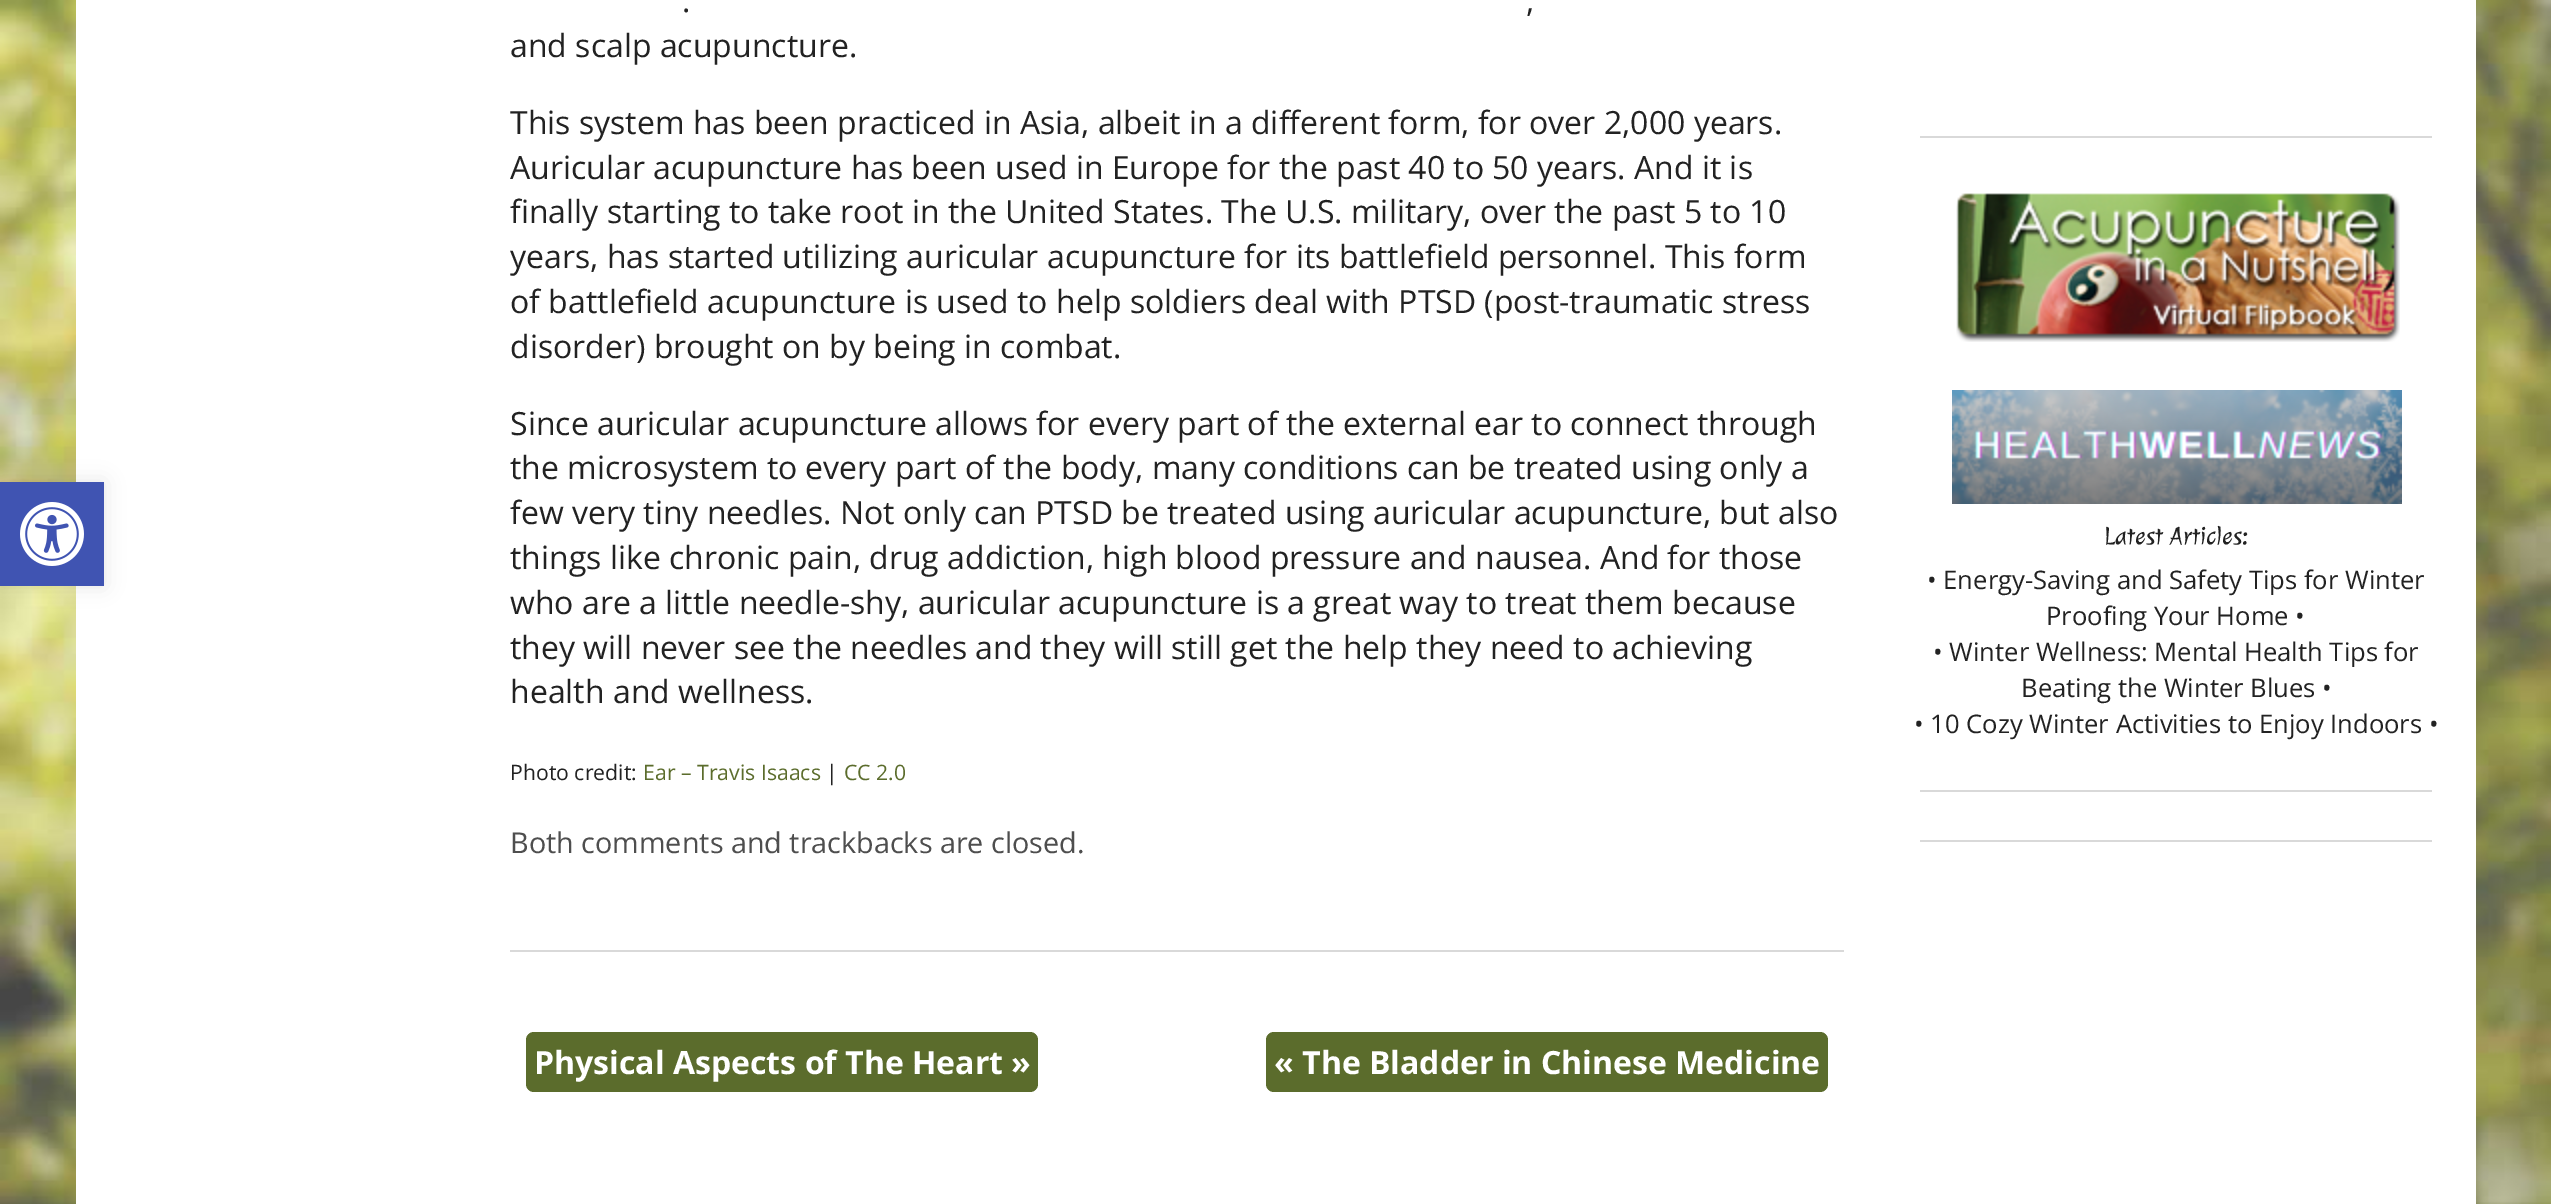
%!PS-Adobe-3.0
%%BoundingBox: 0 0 2551 1204
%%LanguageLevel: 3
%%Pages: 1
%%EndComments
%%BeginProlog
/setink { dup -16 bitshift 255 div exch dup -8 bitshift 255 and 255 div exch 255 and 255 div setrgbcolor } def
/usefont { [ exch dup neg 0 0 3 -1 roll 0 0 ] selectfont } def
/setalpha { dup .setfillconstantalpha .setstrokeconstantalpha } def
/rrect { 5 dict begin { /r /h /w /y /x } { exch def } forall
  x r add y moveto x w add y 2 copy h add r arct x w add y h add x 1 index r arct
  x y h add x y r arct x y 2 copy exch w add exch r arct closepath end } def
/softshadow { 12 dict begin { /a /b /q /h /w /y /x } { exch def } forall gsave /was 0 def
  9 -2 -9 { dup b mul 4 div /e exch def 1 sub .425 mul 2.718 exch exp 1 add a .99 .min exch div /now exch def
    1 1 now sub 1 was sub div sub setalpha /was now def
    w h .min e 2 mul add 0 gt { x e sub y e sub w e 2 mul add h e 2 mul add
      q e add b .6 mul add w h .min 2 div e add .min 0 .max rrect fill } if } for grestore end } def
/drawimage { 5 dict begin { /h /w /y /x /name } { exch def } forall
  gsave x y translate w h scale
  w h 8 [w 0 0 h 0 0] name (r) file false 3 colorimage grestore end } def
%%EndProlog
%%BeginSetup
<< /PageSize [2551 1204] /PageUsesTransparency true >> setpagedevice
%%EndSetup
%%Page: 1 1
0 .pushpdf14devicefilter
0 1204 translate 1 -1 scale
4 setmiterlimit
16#FFFFFF setink
0 0 2551 1204 rectfill
(img1.raw) 0 0 2551 1204 drawimage
76 0 2400 1204 rectfill
16#000000 setink
0 482 104 104 0 10 0.1 softshadow
16#4054B2 setink
0 482 104 104 rectfill
(img2.raw) 20 502 64 64 drawimage
16#D9D9D9 setink
510 950 1334 2 rectfill
/OpenSans-Regular 32 usefont
16#222222 setink
[
    [(.) 682 12]
    [(,) 1526 12]
    [(and scalp acupuncture.) 510 57]
    [(This system has been practiced in Asia, albeit in a different form, for over 2,000 years.) 510 134]
    [(Auricular acupuncture has been used in Europe for the past 40 to 50 years. And it is) 510 179]
    [(finally starting to take root in the United States. The U.S. military, over the past 5 to 10) 510 223]
    [(years, has started utilizing auricular acupuncture for its battlefield personnel. This form) 510 268]
    [(of battlefield acupuncture is used to help soldiers deal with PTSD \(post-traumatic stress) 510 313]
    [(disorder\) brought on by being in combat.) 510 358]
    [(Since auricular acupuncture allows for every part of the external ear to connect through) 510 435]
    [(the microsystem to every part of the body, many conditions can be treated using only a) 510 479]
    [(few very tiny needles. Not only can PTSD be treated using auricular acupuncture, but also) 510 524]
    [(things like chronic pain, drug addiction, high blood pressure and nausea. And for those) 510 569]
    [(who are a little needle-shy, auricular acupuncture is a great way to treat them because) 510 614]
    [(they will never see the needles and they will still get the help they need to achieving) 510 659]
    [(health and wellness.) 510 703]
] { aload pop moveto show } forall
/OpenSans-Regular 21.25 usefont
510 780 moveto (Photo credit:) show
16#5B6C2C setink
643 780 moveto (Ear – Travis Isaacs) show
16#222222 setink
826 780 moveto (|) show
16#5B6C2C setink
844 780 moveto (CC 2.0) show
/OpenSans-Regular 28.75 usefont
16#4E4E4E setink
510 853 moveto (Both comments and trackbacks are closed.) show
16#5B6C2C setink
526 1032 512 60 8 rrect fill
/OpenSans-Bold 32 usefont
16#FFFFFF setink
534 1074 moveto (Physical Aspects of The Heart ») show
16#5B6C2C setink
1266 1032 562 60 8 rrect fill
16#FFFFFF setink
1274 1074 moveto (« The Bladder in Chinese Medicine) show
16#D9D9D9 setink
1920 136 512 2 rectfill
(img3.raw) 1956 193 444 149 drawimage
(img4.raw) 1952 390 450 114 drawimage
/Julee-Regular 25.6 usefont
16#222222 setink
2104 544 moveto (Latest Articles:) show
/OpenSans-Regular 25.6 usefont
[
    [(• Energy-Saving and Safety Tips for Winter) 1927 589]
    [(Proofing Your Home •) 2046 625]
    [(• Winter Wellness: Mental Health Tips for) 1933 661]
    [(Beating the Winter Blues •) 2021 697]
    [(• 10 Cozy Winter Activities to Enjoy Indoors •) 1914 733]
] { aload pop moveto show } forall
16#D9D9D9 setink
1920 790 512 2 rectfill
1920 840 512 2 rectfill
.poppdf14devicefilter showpage
%%EOF
